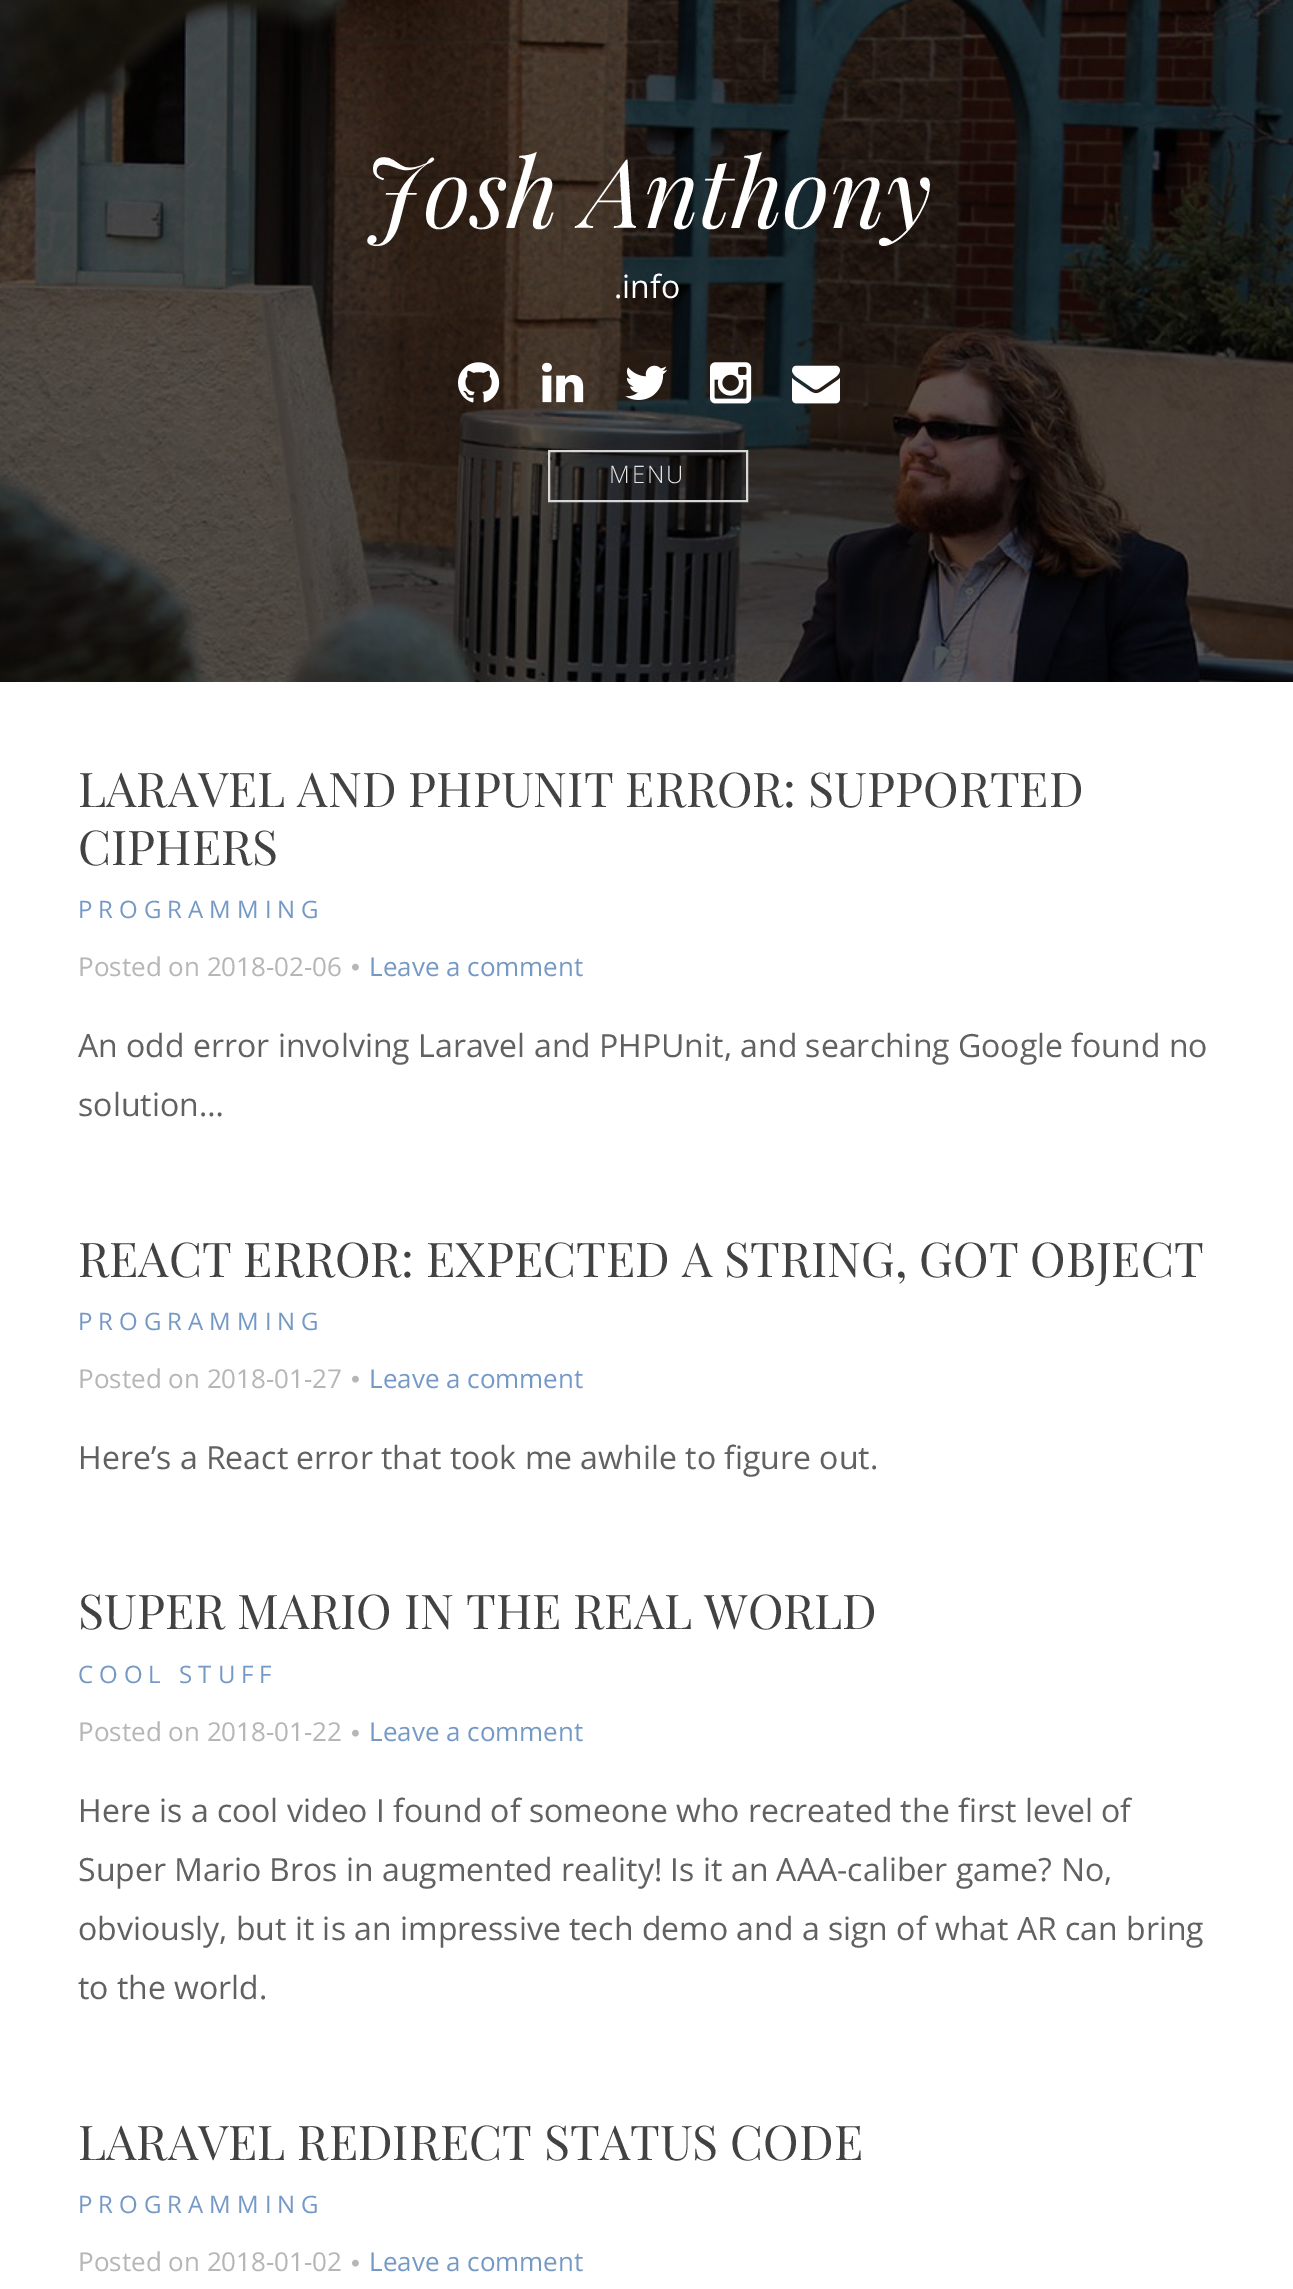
%!PS-Adobe-3.0
%%BoundingBox: 0 0 1293 2289
%%LanguageLevel: 3
%%Pages: 1
%%EndComments
%%BeginProlog
/setink { dup -16 bitshift 255 div exch dup -8 bitshift 255 and 255 div exch 255 and 255 div setrgbcolor } def
/usefont { [ exch dup neg 0 0 3 -1 roll 0 0 ] selectfont } def
/drawimage { 5 dict begin { /h /w /y /x /name } { exch def } forall
  gsave x y translate w h scale
  w h 8 [w 0 0 h 0 0] name (r) file false 3 colorimage grestore end } def
%%EndProlog
%%BeginSetup
<< /PageSize [1293 2289] >> setpagedevice
%%EndSetup
%%Page: 1 1
0 2289 translate 1 -1 scale
4 setmiterlimit
16#FFFFFF setink
0 0 1293 2289 rectfill
(img1.raw) 0 0 1293 682 drawimage
/PlayfairDisplay-Italic 96 usefont
363 228 moveto (Josh Anthony) show
/OpenSans-Regular 32 usefont
614 298 moveto (.info) show
(img2.raw) 458 362 42 41 drawimage
(img3.raw) 542 362 42 41 drawimage
(img4.raw) 625 365 43 35 drawimage
(img5.raw) 710 362 42 42 drawimage
(img6.raw) 792 365 48 39 drawimage
16#D7D7D7 setink
2 setlinewidth
549 451 198 50 rectstroke
/OpenSans-Light 24 usefont
16#E7E7E7 setink
609 483 moveto 2 0 (MENU) ashow
/PlayfairDisplay-Regular 48 usefont
16#424242 setink
78 807 moveto (LARAVEL AND PHPUNIT ERROR: SUPPORTED) show
78 865 moveto (CIPHERS) show
/OpenSans-Regular 24 usefont
16#7599C5 setink
78 918 moveto 6 0 (PROGRAMMING) ashow
/OpenSans-Regular 26 usefont
16#B6B6B6 setink
78 976 moveto (Posted on 2018-02-06) show
(img7.raw) 352 963 7 8 drawimage
16#7599C5 setink
369 976 moveto (Leave a comment) show
/OpenSans-Regular 32 usefont
16#616161 setink
78 1057 moveto (An odd error involving Laravel and PHPUnit, and searching Google found no) show
78 1116 moveto (solution…) show
/PlayfairDisplay-Regular 48 usefont
16#424242 setink
78 1277 moveto (REACT ERROR: EXPECTED A STRING, GOT OBJECT) show
/OpenSans-Regular 24 usefont
16#7599C5 setink
78 1330 moveto 6 0 (PROGRAMMING) ashow
/OpenSans-Regular 26 usefont
16#B6B6B6 setink
78 1388 moveto (Posted on 2018-01-27) show
(img7.raw) 352 1375 7 8 drawimage
16#7599C5 setink
369 1388 moveto (Leave a comment) show
/OpenSans-Regular 32 usefont
16#616161 setink
78 1469 moveto (Here’s a React error that took me awhile to figure out.) show
/PlayfairDisplay-Regular 48 usefont
16#424242 setink
78 1629 moveto (SUPER MARIO IN THE REAL WORLD) show
/OpenSans-Regular 24 usefont
16#7599C5 setink
78 1683 moveto 6 0 (COOL STUFF) ashow
/OpenSans-Regular 26 usefont
16#B6B6B6 setink
78 1741 moveto (Posted on 2018-01-22) show
(img7.raw) 352 1729 7 8 drawimage
16#7599C5 setink
369 1741 moveto (Leave a comment) show
/OpenSans-Regular 32 usefont
16#616161 setink
[
    [(Here is a cool video I found of someone who recreated the first level of) 78 1822]
    [(Super Mario Bros in augmented reality! Is it an AAA-caliber game? No,) 78 1881]
    [(obviously, but it is an impressive tech demo and a sign of what AR can bring) 78 1940]
    [(to the world.) 78 1999]
] { aload pop moveto show } forall
/PlayfairDisplay-Regular 48 usefont
16#424242 setink
78 2160 moveto (LARAVEL REDIRECT STATUS CODE) show
/OpenSans-Regular 24 usefont
16#7599C5 setink
78 2213 moveto 6 0 (PROGRAMMING) ashow
/OpenSans-Regular 26 usefont
16#B6B6B6 setink
78 2271 moveto (Posted on 2018-01-02) show
(img7.raw) 352 2259 7 8 drawimage
16#7599C5 setink
369 2271 moveto (Leave a comment) show
showpage
%%EOF
